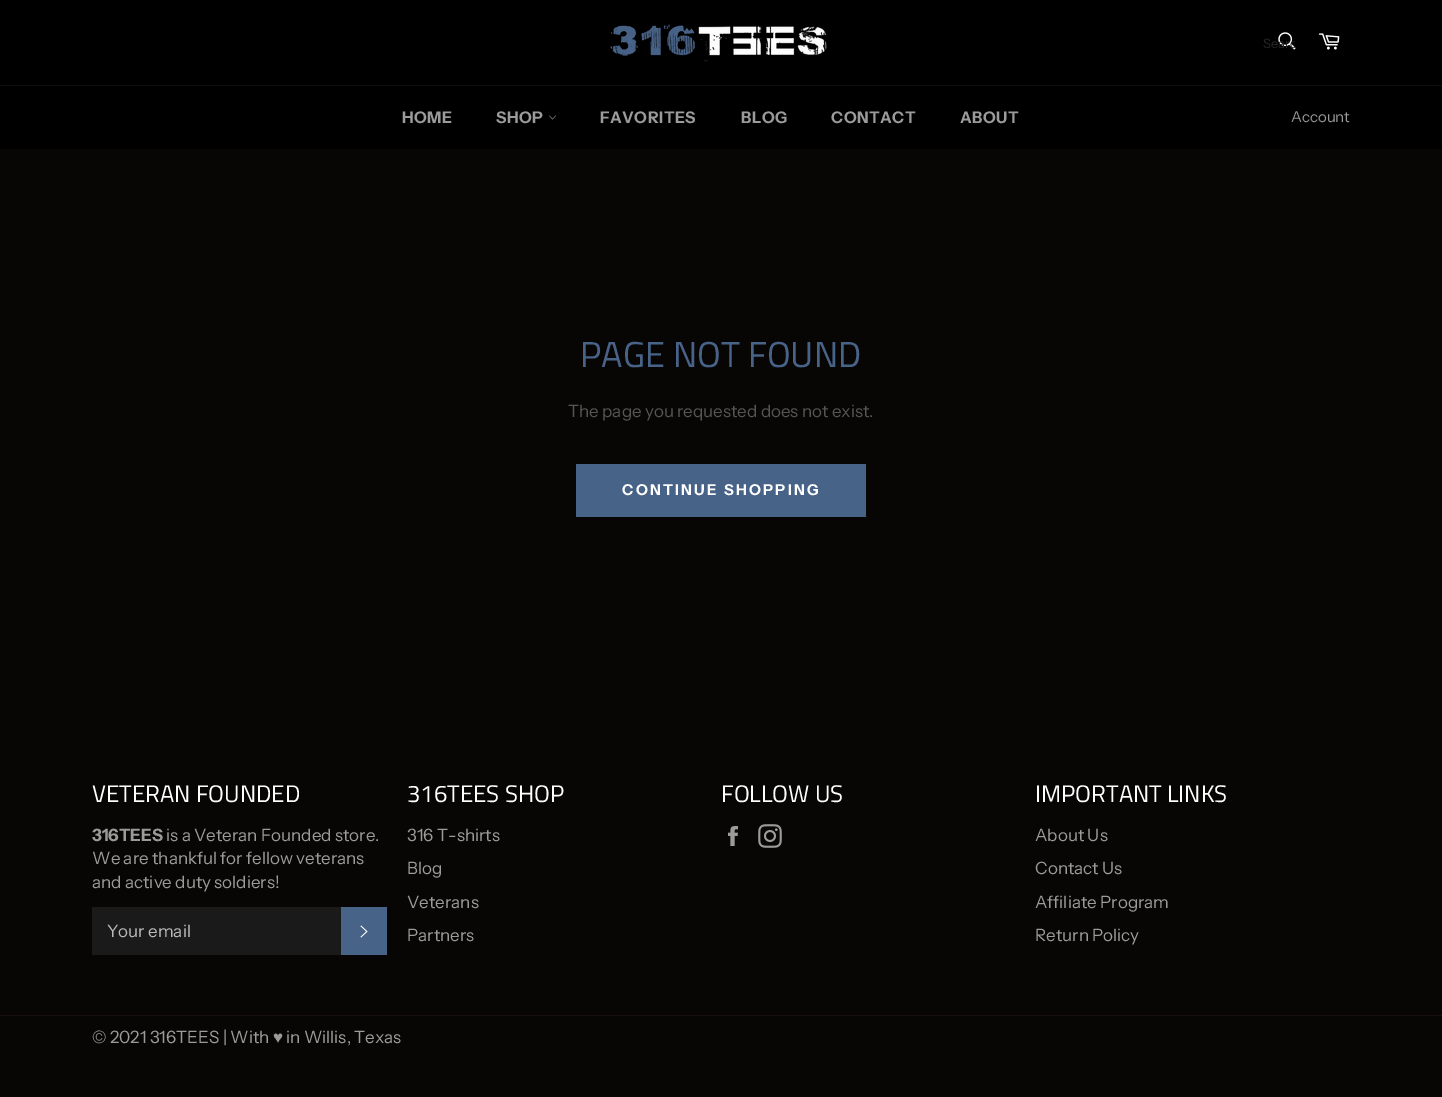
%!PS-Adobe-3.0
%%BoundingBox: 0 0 1442 1097
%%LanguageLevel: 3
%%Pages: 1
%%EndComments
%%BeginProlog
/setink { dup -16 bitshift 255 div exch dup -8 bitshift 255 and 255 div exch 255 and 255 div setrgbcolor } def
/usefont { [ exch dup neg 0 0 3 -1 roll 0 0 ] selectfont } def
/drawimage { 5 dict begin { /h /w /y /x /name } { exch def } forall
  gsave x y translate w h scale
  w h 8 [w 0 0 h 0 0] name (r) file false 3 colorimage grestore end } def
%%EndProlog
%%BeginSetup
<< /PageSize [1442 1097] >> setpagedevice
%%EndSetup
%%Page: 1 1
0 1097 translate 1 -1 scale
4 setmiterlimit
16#080505 setink
0 0 1442 1097 rectfill
16#000000 setink
0 0 1442 149 rectfill
(img1.raw) 610 24 217 38 drawimage
(img2.raw) 1278 32 18 18 drawimage
gsave
1263 35 32 16 rectclip
/InstrumentSans-Regular 13 usefont
16#262626 setink
1263 48 moveto (Searc) show
grestore
(img3.raw) 1318 33 22 17 drawimage
16#0D0D0D setink
0 85 1442 1 rectfill
/InstrumentSans-Bold 16 usefont
16#9C9B9B setink
402 123 moveto 0.5 0 (HOME) ashow
496 123 moveto 0.5 0 (SHOP) ashow
(img4.raw) 549 115 7 5 drawimage
600 123 moveto 0.5 0 (FAVORITES) ashow
741 123 moveto 0.5 0 (BLOG) ashow
831 123 moveto 0.5 0 (CONTACT) ashow
960 123 moveto 0.5 0 (ABOUT) ashow
/InstrumentSans-Regular 15 usefont
1291 122 moveto (Account) show
/TitilliumWeb-Regular 36 usefont
16#486388 setink
580 367 moveto (PAGE NOT FOUND) show
/InstrumentSans-Regular 17 usefont
16#555555 setink
568 417 moveto (The page you requested does not exist.) show
16#486388 setink
576 464 290 53 rectfill
/InstrumentSans-Bold 15 usefont
16#FFFFFF setink
622 495 moveto 2.25 0 (CONTINUE SHOPPING) ashow
/TitilliumWeb-Regular 24 usefont
92 802 moveto (VETERAN FOUNDED) show
/InstrumentSans-Bold 17 usefont
16#9C9B9B setink
92 841 moveto (316TEES) show
/InstrumentSans-Regular 17 usefont
[
    [(is a Veteran Founded store.) 166 841]
    [(We are thankful for fellow veterans) 92 864]
    [(and active duty soldiers!) 92 888]
] { aload pop moveto show } forall
16#1A1A1A setink
92 907 249 48 rectfill
16#BABABA setink
107 937 moveto (Your email) show
16#486388 setink
341 907 46 48 rectfill
(img5.raw) 360 925 8 13 drawimage
/TitilliumWeb-Regular 24 usefont
16#FFFFFF setink
407 802 moveto (316TEES SHOP) show
/InstrumentSans-Regular 17 usefont
16#9C9B9B setink
[
    [(316 T-shirts) 407 841]
    [(Blog) 407 874]
    [(Veterans) 407 908]
    [(Partners) 407 941]
] { aload pop moveto show } forall
/TitilliumWeb-Regular 24 usefont
16#FFFFFF setink
721 802 moveto (FOLLOW US) show
(img6.raw) 728 826 10 20 drawimage
(img7.raw) 758 824 24 24 drawimage
1035 802 moveto (IMPORTANT LINKS) show
/InstrumentSans-Regular 17 usefont
16#9C9B9B setink
[
    [(About Us) 1035 841]
    [(Contact Us) 1035 874]
    [(Affiliate Program) 1035 908]
    [(Return Policy) 1035 941]
] { aload pop moveto show } forall
16#180F0F setink
0 1015 1442 1 rectfill
16#9C9B9B setink
92 1043 moveto (© 2021 316TEES | With) show
/LiberationSans-Regular 17 usefont
273 1043 moveto (♥) show
/InstrumentSans-Regular 17 usefont
286 1043 moveto (in Willis, Texas) show
showpage
%%EOF
